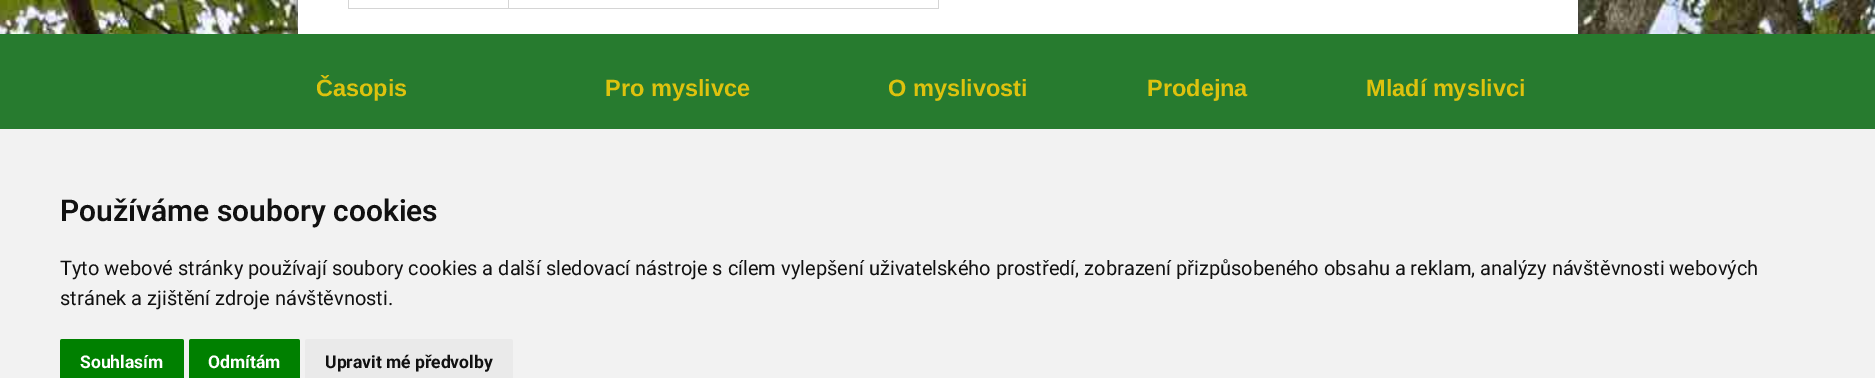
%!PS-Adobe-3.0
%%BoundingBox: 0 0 1875 378
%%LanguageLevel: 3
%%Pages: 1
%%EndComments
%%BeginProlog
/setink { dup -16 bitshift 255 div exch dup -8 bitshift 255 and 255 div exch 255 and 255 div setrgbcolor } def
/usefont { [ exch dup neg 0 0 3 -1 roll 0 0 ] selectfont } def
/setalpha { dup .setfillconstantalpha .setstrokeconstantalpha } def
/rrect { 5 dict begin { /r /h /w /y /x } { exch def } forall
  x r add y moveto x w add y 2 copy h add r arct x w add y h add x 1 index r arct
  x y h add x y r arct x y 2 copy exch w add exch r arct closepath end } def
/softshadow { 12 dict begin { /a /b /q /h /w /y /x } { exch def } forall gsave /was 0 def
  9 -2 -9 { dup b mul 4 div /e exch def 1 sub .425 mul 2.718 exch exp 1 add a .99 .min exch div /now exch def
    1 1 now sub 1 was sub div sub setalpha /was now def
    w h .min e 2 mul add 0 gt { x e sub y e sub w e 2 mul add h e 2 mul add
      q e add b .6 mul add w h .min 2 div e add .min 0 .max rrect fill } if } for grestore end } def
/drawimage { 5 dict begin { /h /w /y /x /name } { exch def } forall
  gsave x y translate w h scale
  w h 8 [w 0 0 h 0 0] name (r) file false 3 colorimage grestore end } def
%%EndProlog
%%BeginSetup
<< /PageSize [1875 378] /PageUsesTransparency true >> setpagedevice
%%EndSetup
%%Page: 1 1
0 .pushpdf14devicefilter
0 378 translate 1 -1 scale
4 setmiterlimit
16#FFFFFF setink
0 0 1875 378 rectfill
(img1.raw) 0 0 1875 34 drawimage
16#444444 setink
298 -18 1280 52 0 6 1 softshadow
[
    [298 0 1280 34 16#FFFFFF]
    [938 0 1 9 16#D5D5D5]
    [508 8 431 1 16#D5D5D5]
    [508 0 1 9 16#D5D5D5]
    [348 8 161 1 16#D5D5D5]
    [348 0 1 9 16#D5D5D5]
    [0 34 1875 95 16#277B2F]
] { aload pop setink rectfill } forall
/LiberationSans-Bold 23.5 usefont
16#DDC20E setink
[
    [(Časopis) 316 96]
    [(Pro myslivce) 605 96]
    [(O myslivosti) 888 96]
    [(Prodejna) 1147 96]
    [(Mladí myslivci) 1366 96]
] { aload pop moveto show } forall
16#F2F2F2 setink
0 129 1875 249 rectfill
/Roboto-SemiBold 30 usefont
16#111111 setink
60 221 moveto (Používáme soubory cookies) show
/Roboto-Regular 20 usefont
60 275 moveto (Tyto webové stránky používají soubory cookies a další sledovací nástroje s cílem vylepšení uživatelského prostředí, zobrazení přizpůsobeného obsahu a reklam, analýzy návštěvnosti webových) show
60 305 moveto (stránek a zjištění zdroje návštěvnosti.) show
16#008000 setink
62.5 339 moveto 181.5 339 lineto 183 339 184 340 184 341.5 curveto 184 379 lineto 60 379 lineto 60 341.5 lineto 60 340 61 339 62.5 339 curveto closepath fill
/Roboto-Bold 17.5 usefont
16#FFFFFF setink
80 368 moveto (Souhlasím) show
16#008000 setink
191.5 339 moveto 297.5 339 lineto 299 339 300 340 300 341.5 curveto 300 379 lineto 189 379 lineto 189 341.5 lineto 189 340 190 339 191.5 339 curveto closepath fill
16#FFFFFF setink
208 368 moveto (Odmítám) show
16#EAEAEA setink
307.5 339 moveto 510.5 339 lineto 512 339 513 340 513 341.5 curveto 513 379 lineto 305 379 lineto 305 341.5 lineto 305 340 306 339 307.5 339 curveto closepath fill
16#111111 setink
325 368 moveto (Upravit mé předvolby) show
.poppdf14devicefilter showpage
%%EOF
